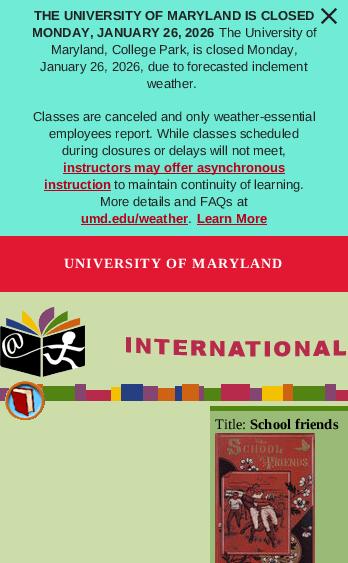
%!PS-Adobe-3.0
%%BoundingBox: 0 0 348 563
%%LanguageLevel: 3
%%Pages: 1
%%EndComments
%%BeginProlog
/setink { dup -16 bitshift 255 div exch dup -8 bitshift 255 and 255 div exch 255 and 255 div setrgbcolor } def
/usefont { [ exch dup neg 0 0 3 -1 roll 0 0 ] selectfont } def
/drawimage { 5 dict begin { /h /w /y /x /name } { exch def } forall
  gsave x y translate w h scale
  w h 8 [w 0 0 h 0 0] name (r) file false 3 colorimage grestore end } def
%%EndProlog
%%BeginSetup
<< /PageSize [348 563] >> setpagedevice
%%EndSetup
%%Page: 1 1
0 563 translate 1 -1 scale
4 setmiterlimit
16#CCDDAA setink
0 0 348 563 rectfill
16#70EBD6 setink
0 0 348 236 rectfill
/LiberationSans-Bold 13 usefont
16#222222 setink
34 20 moveto (THE UNIVERSITY OF MARYLAND IS CLOSED) show
337 22.5 moveto 335.5 24 lineto 321 9.5 lineto 322.5 8 lineto closepath fill
335.5 8 moveto 337 9.5 lineto 322.5 24 lineto 321 22.5 lineto closepath fill
32 37 moveto (MONDAY, JANUARY 26, 2026) show
/LiberationSans-Regular 13 usefont
[
    [(The University of) 219 37]
    [(Maryland, College Park, is closed Monday,) 51 54]
    [(January 26, 2026, due to forecasted inclement) 40 71]
    [(weather.) 147 88]
    [(Classes are canceled and only weather-essential) 33 121]
    [(employees report. While classes scheduled) 49 138]
    [(during closures or delays will not meet,) 62 155]
] { aload pop moveto show } forall
16#BB0019 setink
63 173 222 1 rectfill
/LiberationSans-Bold 13 usefont
63 172 moveto (instructors may offer asynchronous) show
44 189 moveto (instruction) show
44 190 67 1 rectfill
/LiberationSans-Regular 13 usefont
16#222222 setink
114 189 moveto (to maintain continuity of learning.) show
100 206 moveto (More details and FAQs at) show
/LiberationSans-Bold 13 usefont
16#BB0019 setink
81 223 moveto (umd.edu/weather) show
/LiberationSans-Regular 13 usefont
16#222222 setink
188 223 moveto (.) show
16#BB0019 setink
81 224 107 1 rectfill
197 224 70 1 rectfill
/LiberationSans-Bold 13 usefont
197 223 moveto (Learn More) show
16#E21833 setink
0 236 348 56 rectfill
/LiberationSerif-Bold 14 usefont
16#FFFFFF setink
64 268 moveto 1 0 (UNIVERSITY OF MARYLAND) ashow
(img1.raw) 0 307 85 70 drawimage
(img2.raw) 126 337 220 20 drawimage
(img4.raw) 0 384 348 17 drawimage
(img3.raw) 5 381 40 39 drawimage
16#99BB77 setink
210 411 138 152 rectfill
16#558811 setink
210 406 138 5 rectfill
/LiberationSerif-Regular 14.5 usefont
16#000000 setink
215 429 moveto (Title:) show
/LiberationSerif-Bold 14.5 usefont
250 429 moveto (School friends) show
(img5.raw) 215 433 100 130 drawimage
showpage
%%EOF
